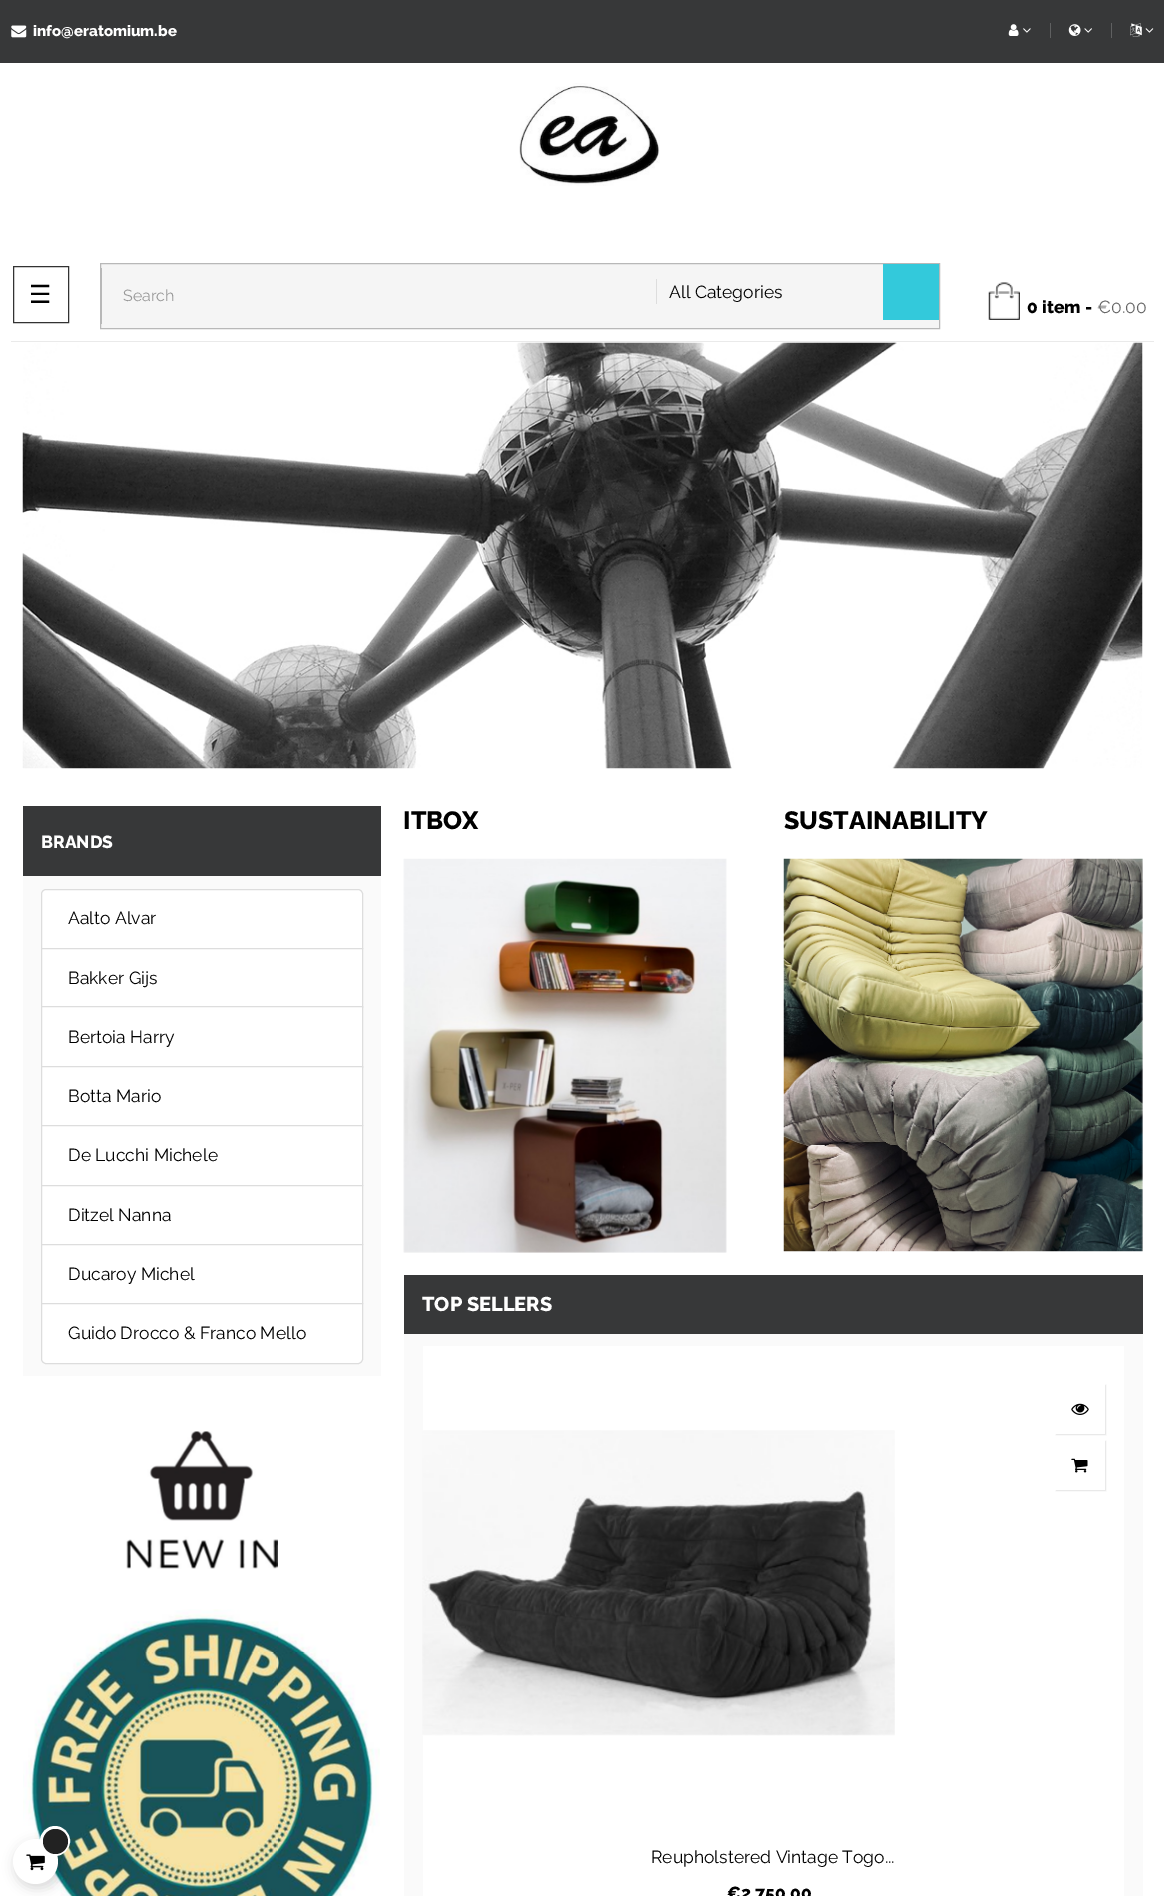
%!PS-Adobe-3.0
%%BoundingBox: 0 0 1164 1896
%%LanguageLevel: 3
%%Pages: 1
%%EndComments
%%BeginProlog
/setink { dup -16 bitshift 255 div exch dup -8 bitshift 255 and 255 div exch 255 and 255 div setrgbcolor } def
/usefont { [ exch dup neg 0 0 3 -1 roll 0 0 ] selectfont } def
/setalpha { dup .setfillconstantalpha .setstrokeconstantalpha } def
/disc { newpath 0 360 arc closepath } def
/rrect { 5 dict begin { /r /h /w /y /x } { exch def } forall
  x r add y moveto x w add y 2 copy h add r arct x w add y h add x 1 index r arct
  x y h add x y r arct x y 2 copy exch w add exch r arct closepath end } def
/softshadow { 12 dict begin { /a /b /q /h /w /y /x } { exch def } forall gsave /was 0 def
  9 -2 -9 { dup b mul 4 div /e exch def 1 sub .425 mul 2.718 exch exp 1 add a .99 .min exch div /now exch def
    1 1 now sub 1 was sub div sub setalpha /was now def
    w h .min e 2 mul add 0 gt { x e sub y e sub w e 2 mul add h e 2 mul add
      q e add b .6 mul add w h .min 2 div e add .min 0 .max rrect fill } if } for grestore end } def
/drawimage { 5 dict begin { /h /w /y /x /name } { exch def } forall
  gsave x y translate w h scale
  w h 8 [w 0 0 h 0 0] name (r) file false 3 colorimage grestore end } def
%%EndProlog
%%BeginSetup
<< /PageSize [1164 1896] /PageUsesTransparency true >> setpagedevice
%%EndSetup
%%Page: 1 1
0 .pushpdf14devicefilter
0 1896 translate 1 -1 scale
4 setmiterlimit
16#FFFFFF setink
0 0 1164 1896 rectfill
16#373839 setink
0 0 1164 63 rectfill
(img1.raw) 11 25 16 13 drawimage
/Raleway-ExtraBold 15 usefont
16#FFFFFF setink
33 36 moveto (info@eratomium.be) show
(img2.raw) 1008 24 11 12 drawimage
(img3.raw) 1023 28 8 5 drawimage
16#5F6061 setink
1050 23 1 15 rectfill
(img4.raw) 1068 24 13 12 drawimage
(img5.raw) 1084 28 8 5 drawimage
1111 23 1 15 rectfill
(img6.raw) 1130 23 12 14 drawimage
(img7.raw) 1145 28 9 5 drawimage
16#EAEAEA setink
11 341 1143 1 rectfill
16#333333 setink
13.5 266.5 55 56 rectstroke
/DejaVuSans-Regular 25 usefont
16#000000 setink
29 303 moveto (☰) show
(img8.raw) 519 83 141 103 drawimage
16#F5F5F5 setink
100.5 263.5 moveto 939.5 263.5 lineto 939.5 328.5 lineto 100.5 328.5 lineto closepath gsave fill grestore
16#B8B8B8 setink
stroke
101 268 1 56 rectfill
/Raleway-Regular 16 usefont
16#999999 setink
123 301 moveto (Search) show
16#DDDDDD setink
656 279 1 25 rectfill
/Raleway-Regular 17.5 usefont
16#000000 setink
669 298 moveto (All Categories) show
16#33C9DB setink
883 264 56 56 rectfill
(img9.raw) 988 282 32 38 drawimage
/Raleway-ExtraBold 17.5 usefont
16#000000 setink
1027 313 moveto (0) show
1042 313 moveto (item -) show
/Raleway-Regular 17.5 usefont
16#666666 setink
1097 313 moveto (€0.00) show
(img10.raw) 22 342 1121 427 drawimage
/Raleway-ExtraBold 25 usefont
16#000000 setink
403 829 moveto (ITBOX) show
(img11.raw) 403 858 324 395 drawimage
784 829 moveto (SUSTAINABILITY) show
(img12.raw) 783 858 360 394 drawimage
16#373839 setink
23 806 358 70 rectfill
/Raleway-ExtraBold 17.5 usefont
16#FFFFFF setink
41 848 moveto (BRANDS) show
16#FAFAFA setink
23 876 358 500 rectfill
16#FFFFFF setink
46 889.5 moveto 358 889.5 lineto 360.5 889.5 362.5 891.5 362.5 894 curveto 362.5 948.5 lineto 41.5 948.5 lineto 41.5 894 lineto 41.5 891.5 43.5 889.5 46 889.5 curveto closepath gsave fill grestore
16#DDDDDD setink
stroke
/Raleway-Regular 17.5 usefont
16#000000 setink
68 924 moveto (Aalto Alvar) show
16#FFFFFF setink
42 949 320 57 rectfill
16#DDDDDD setink
41.5 948.5 321 59 rectstroke
16#000000 setink
68 984 moveto (Bakker Gijs) show
16#FFFFFF setink
42 1007 320 59 rectfill
16#DDDDDD setink
41.5 1006.5 321 61 rectstroke
16#000000 setink
68 1043 moveto (Bertoia Harry) show
16#FFFFFF setink
41.5 1066.5 moveto 362.5 1066.5 lineto 362.5 1125.5 lineto 41.5 1125.5 lineto closepath gsave fill grestore
16#DDDDDD setink
stroke
16#000000 setink
68 1102 moveto (Botta Mario) show
16#FFFFFF setink
41.5 1125.5 moveto 362.5 1125.5 lineto 362.5 1185.5 lineto 41.5 1185.5 lineto closepath gsave fill grestore
16#DDDDDD setink
stroke
16#000000 setink
68 1161 moveto (De Lucchi Michele) show
16#FFFFFF setink
41.5 1185.5 moveto 362.5 1185.5 lineto 362.5 1244.5 lineto 41.5 1244.5 lineto closepath gsave fill grestore
16#DDDDDD setink
stroke
16#000000 setink
68 1221 moveto (Ditzel Nanna) show
16#FFFFFF setink
41.5 1244.5 moveto 362.5 1244.5 lineto 362.5 1303.5 lineto 41.5 1303.5 lineto closepath gsave fill grestore
16#DDDDDD setink
stroke
16#000000 setink
68 1280 moveto (Ducaroy Michel) show
16#FFFFFF setink
41.5 1303.5 moveto 362.5 1303.5 lineto 362.5 1359 lineto 362.5 1361.5 360.5 1363.5 358 1363.5 curveto 46 1363.5 lineto 43.5 1363.5 41.5 1361.5 41.5 1359 curveto closepath gsave fill grestore
16#DDDDDD setink
stroke
16#000000 setink
68 1339 moveto (Guido Drocco & Franco Mello) show
(img13.raw) 126 1431 152 138 drawimage
(img14.raw) 23 1609 357 287 drawimage
16#373839 setink
404 1275 739 59 rectfill
/Raleway-ExtraBold 20 usefont
16#FFFFFF setink
422 1311 moveto (TOP SELLERS) show
16#FAFAFA setink
404 1334 739 562 rectfill
16#FFFFFF setink
423 1346 701 550 rectfill
(img15.raw) 422 1430 473 306 drawimage
16#000000 setink
1056 1385 50 50 0 0.5 0.1 softshadow
16#FFFFFF setink
1055 1384 50 50 rectfill
(img16.raw) 1071 1403 18 12 drawimage
gsave
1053 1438 moveto 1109 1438 lineto 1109 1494 lineto 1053 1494 lineto closepath 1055 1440 moveto 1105 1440 lineto 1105 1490 lineto 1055 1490 lineto closepath eoclip newpath
16#000000 setink
1056 1441 50 50 0 0.5 0.1 softshadow
grestore
(img17.raw) 1071 1458 17 15 drawimage
/Raleway-Regular 17.5 usefont
16#000000 setink
651 1863 moveto (Reupholstered Vintage Togo...) show
/Raleway-ExtraBold 17.5 usefont
727 1899 moveto (€2,750.00) show
15 1843 45 45 22.5 6 0.15 softshadow
16#FFFFFF setink
35.5 1861.5 22.5 disc fill
(img18.raw) 26 1854 19 17 drawimage
3 setlinewidth
55 1841 13.5 disc stroke
16#222222 setink
55.5 1841.5 12.5 disc fill
.poppdf14devicefilter showpage
%%EOF
